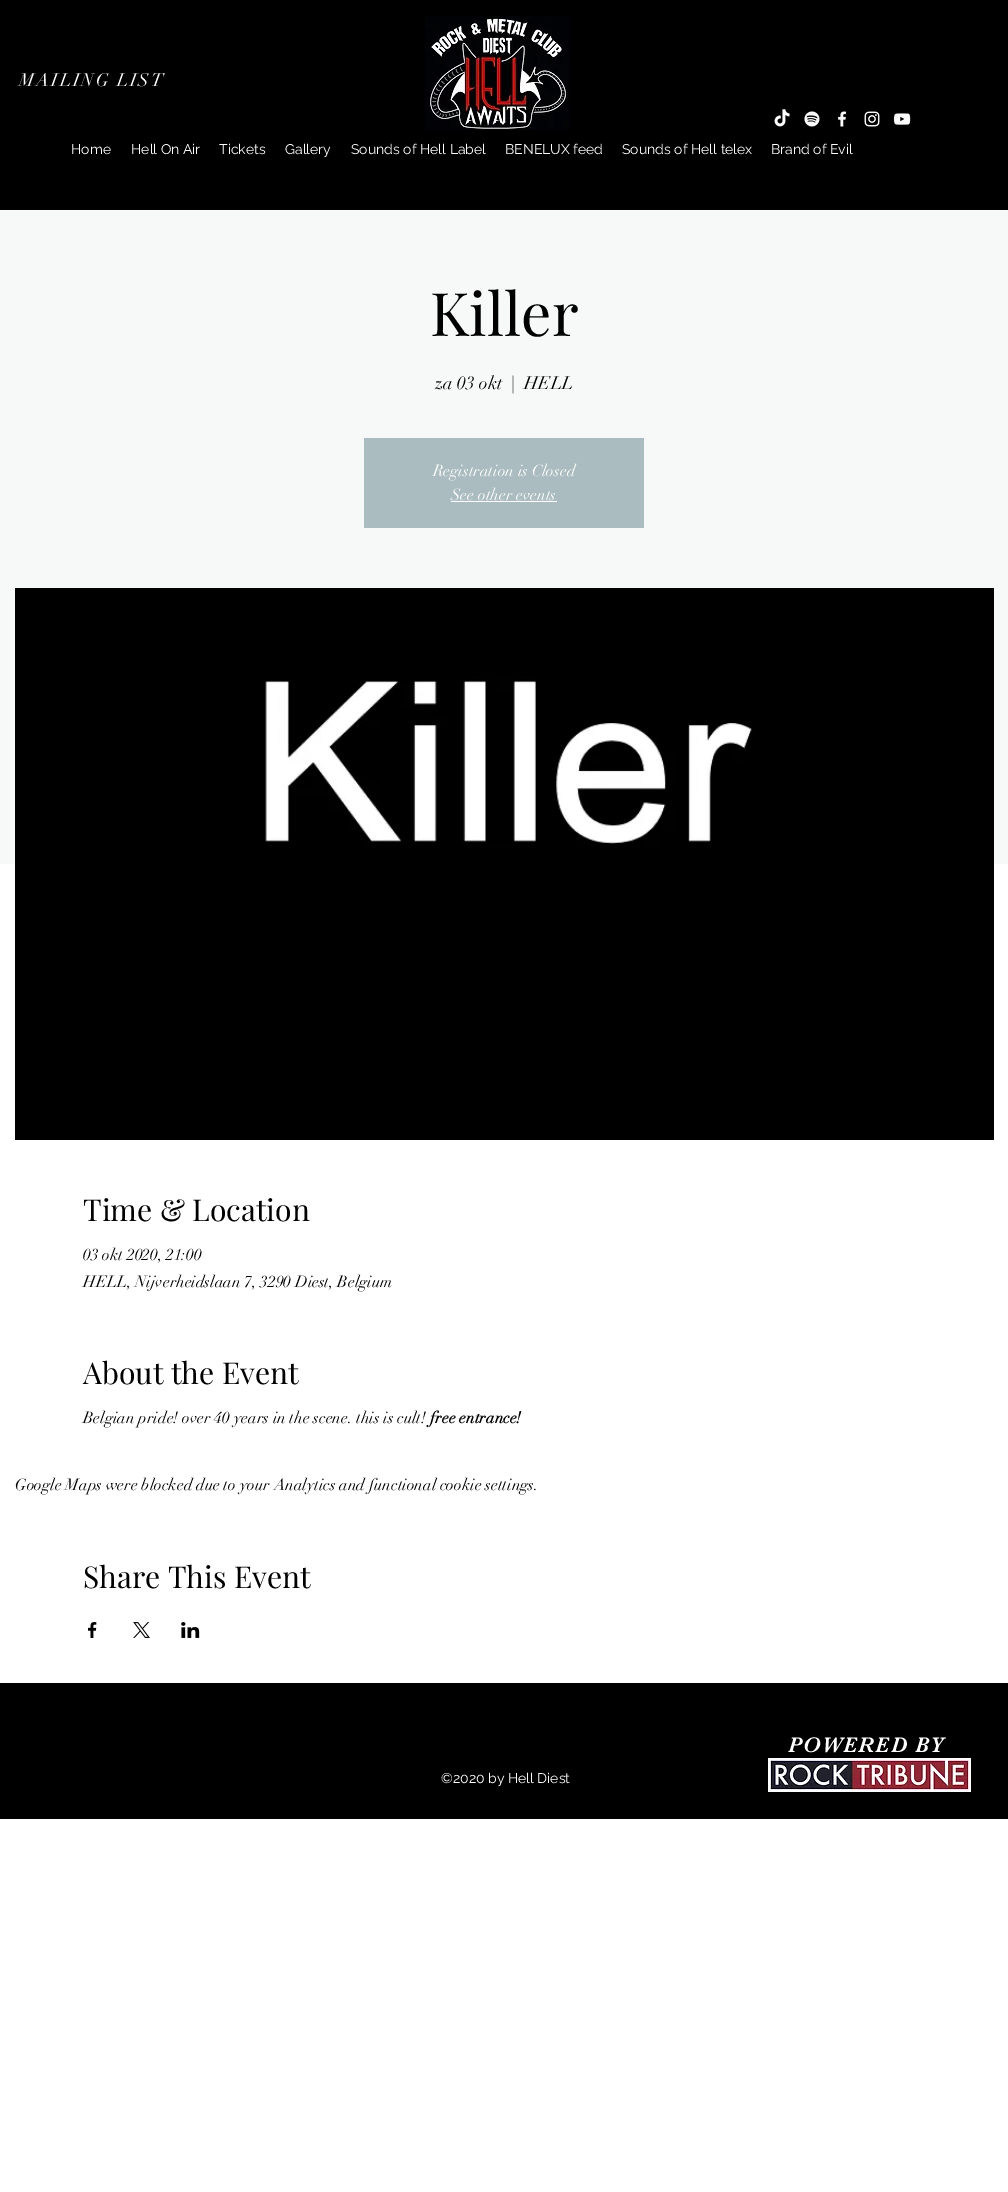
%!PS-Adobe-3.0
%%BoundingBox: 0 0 1008 2192
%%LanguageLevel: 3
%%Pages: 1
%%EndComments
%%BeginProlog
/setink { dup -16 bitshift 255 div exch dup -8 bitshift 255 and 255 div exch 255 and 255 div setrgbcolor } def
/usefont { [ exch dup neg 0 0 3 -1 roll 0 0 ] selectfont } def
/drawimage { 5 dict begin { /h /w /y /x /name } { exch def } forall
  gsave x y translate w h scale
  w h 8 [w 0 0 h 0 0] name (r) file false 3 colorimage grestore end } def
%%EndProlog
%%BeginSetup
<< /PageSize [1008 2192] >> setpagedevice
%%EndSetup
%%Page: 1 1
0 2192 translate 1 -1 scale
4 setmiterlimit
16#FFFFFF setink
0 0 1008 2192 rectfill
16#000000 setink
0 0 1008 210 rectfill
/didot-Regular 18 usefont
16#FFFFFF setink
19 86 moveto 1.75 0 (MAILING LIST) ashow
(img1.raw) 774 109 16 18 drawimage
(img2.raw) 804 111 16 16 drawimage
(img3.raw) 838 111 9 16 drawimage
(img4.raw) 864 111 16 16 drawimage
(img5.raw) 893 113 18 12 drawimage
(img6.raw) 425 16 145 114 drawimage
/Raleway-Regular 14 usefont
[
    [(Home) 71 154]
    [(Hell On Air) 131 154]
    [(Tickets) 219 154]
    [(Gallery) 285 154]
    [(Sounds of Hell Label) 351 154]
    [(BENELUX feed) 505 154]
    [(Sounds of Hell telex) 622 154]
    [(Brand of Evil) 771 154]
] { aload pop moveto show } forall
16#F7F9F9 setink
0 210 1008 654 rectfill
/PlayfairDisplay-Regular 60 usefont
16#000000 setink
430 336 moveto (Killer) show
/didot-Regular 18 usefont
[
    [(za 03 okt) 435 389]
    [(|) 511 389]
    [(HELL) 524 389]
] { aload pop moveto show } forall
16#AABCBF setink
364 438 280 90 rectfill
/didot-Regular 16 usefont
16#FFFFFF setink
433 476 moveto (Registration is Closed) show
451 500 moveto (See other events) show
451 501 106 1 rectfill
(img7.raw) 15 588 979 552 drawimage
/PlayfairDisplay-Regular 30 usefont
16#000000 setink
83 1221 moveto (Time & Location) show
/didot-Regular 16 usefont
83 1260 moveto (03 okt 2020, 21:00) show
83 1287 moveto (HELL, Nijverheidslaan 7, 3290 Diest, Belgium) show
/PlayfairDisplay-Regular 30 usefont
83 1384 moveto (About the Event) show
/didot-Regular 16 usefont
83 1423 moveto (Belgian pride! over 40 years in the scene. this is cult!) show
/didot-Bold 16 usefont
430 1423 moveto (free entrance!) show
/didot-Regular 16 usefont
15 1490 moveto (Google Maps were blocked due to your Analytics and functional cookie settings.) show
/PlayfairDisplay-Regular 30 usefont
83 1588 moveto (Share This Event) show
(img8.raw) 88 1622 9 16 drawimage
(img9.raw) 133 1622 17 16 drawimage
(img10.raw) 181 1622 19 16 drawimage
0 1683 1008 136 rectfill
/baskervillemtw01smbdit-Regular 22 usefont
16#FFFFFF setink
788 1752 moveto 1.1 0 (POWERED BY) ashow
/Raleway-Regular 14 usefont
441 1783 moveto (©2020 by Hell Diest) show
(img11.raw) 768 1758 203 34 drawimage
showpage
%%EOF
